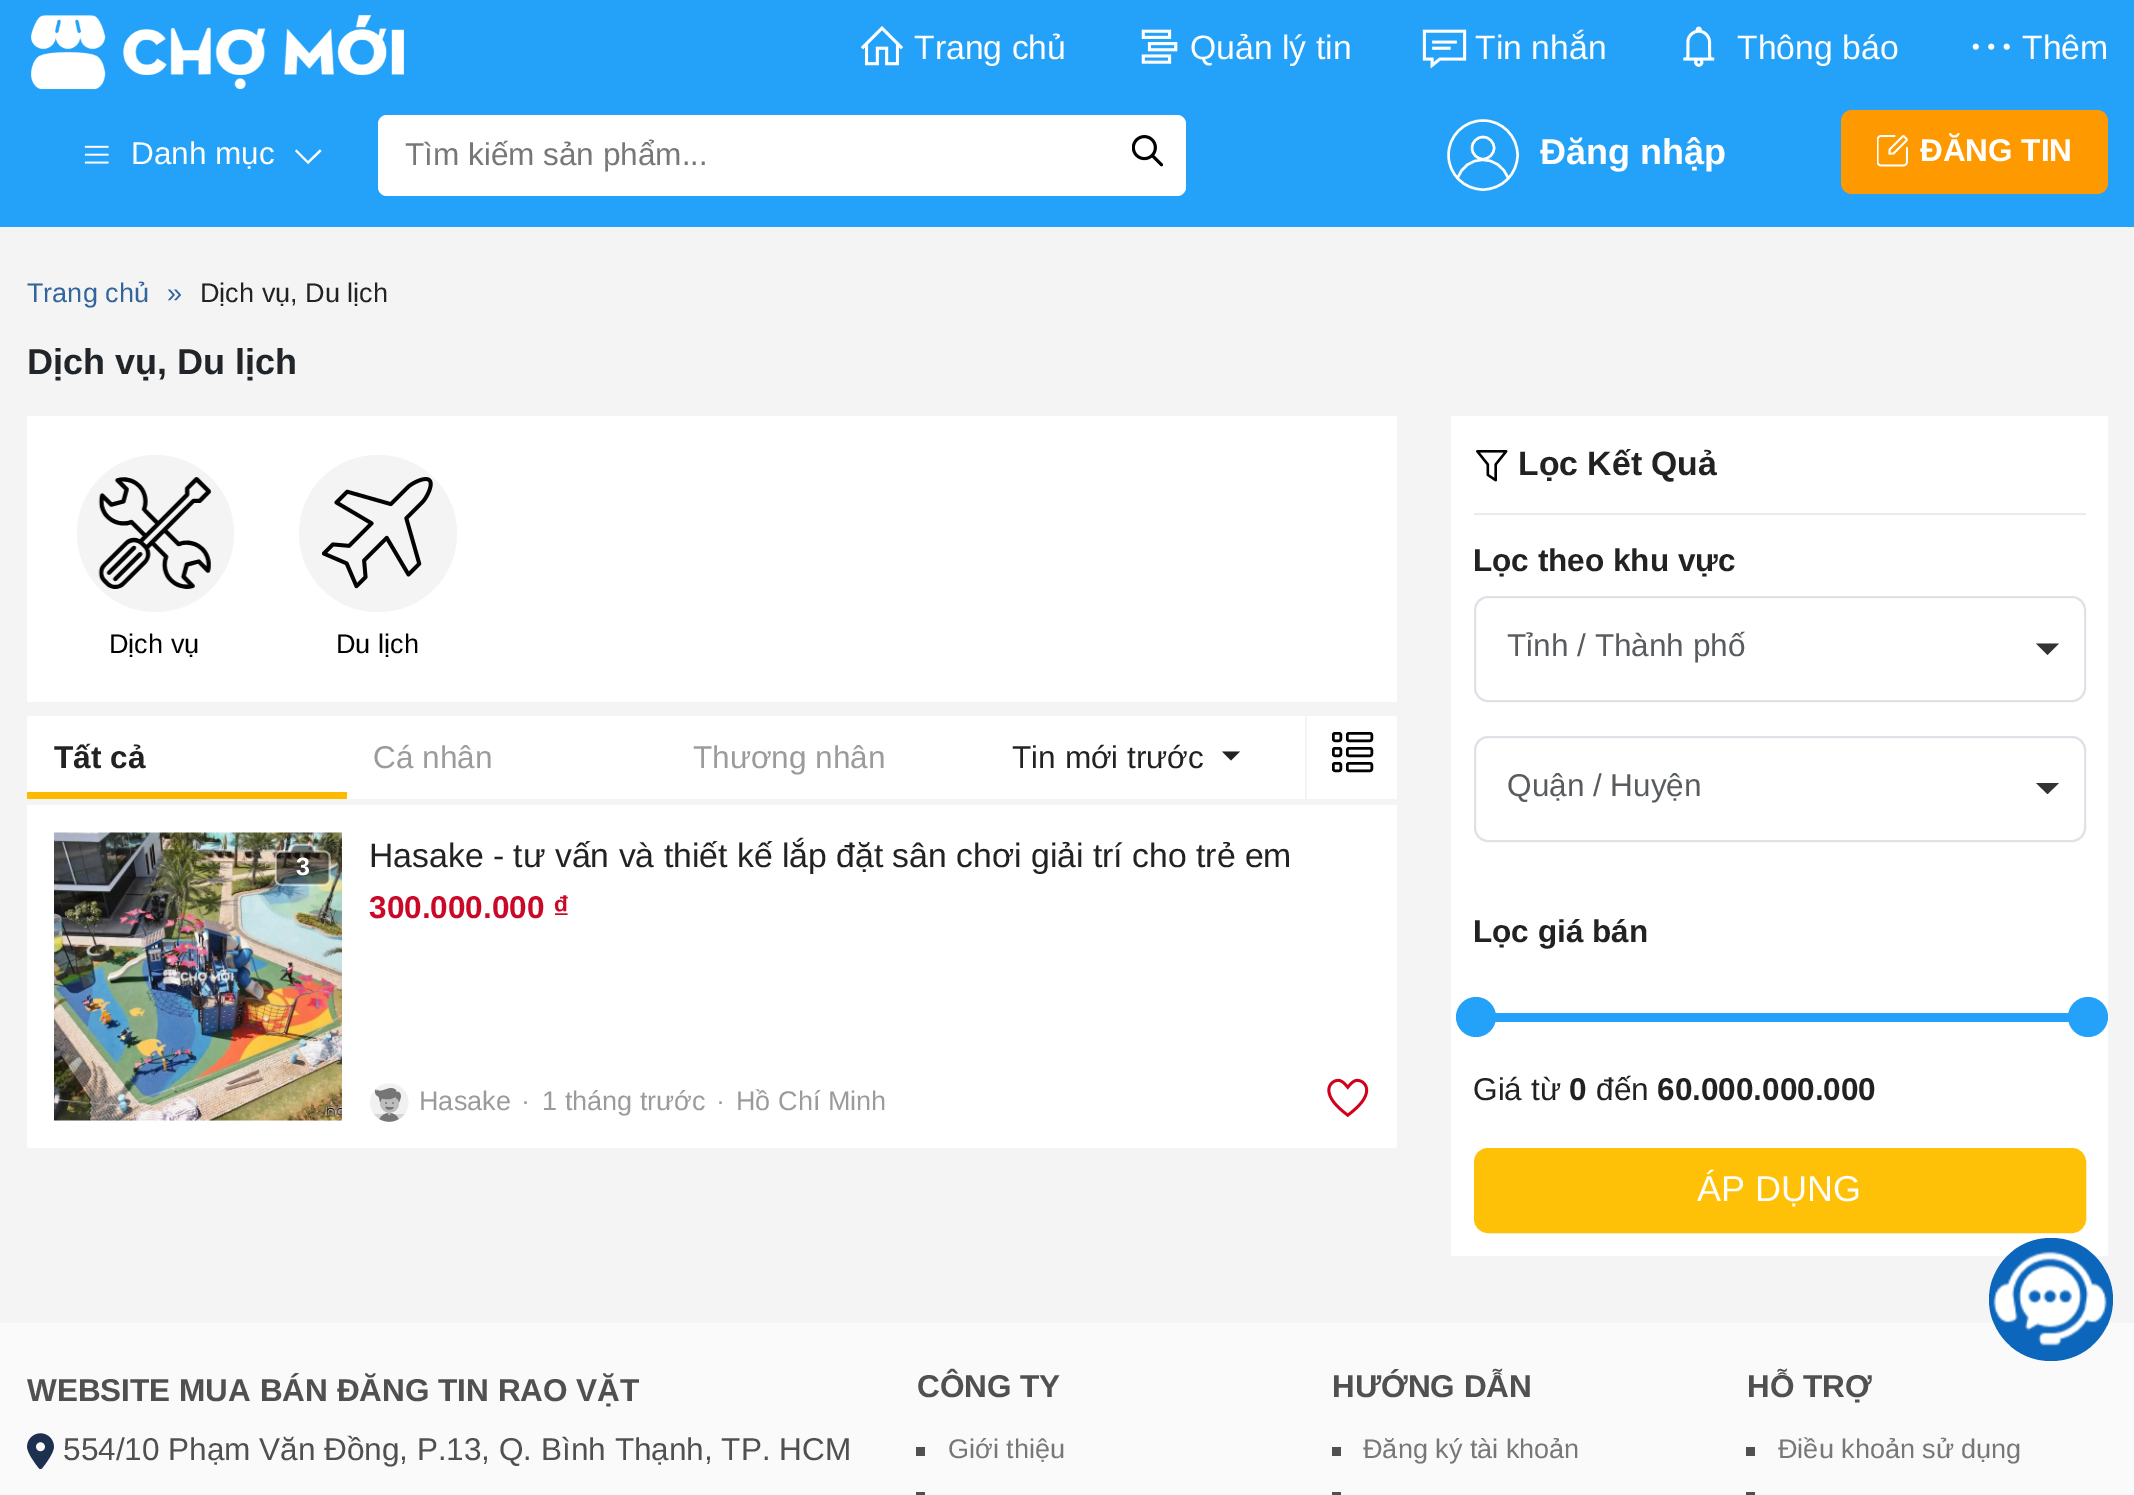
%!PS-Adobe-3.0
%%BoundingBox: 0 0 2134 1495
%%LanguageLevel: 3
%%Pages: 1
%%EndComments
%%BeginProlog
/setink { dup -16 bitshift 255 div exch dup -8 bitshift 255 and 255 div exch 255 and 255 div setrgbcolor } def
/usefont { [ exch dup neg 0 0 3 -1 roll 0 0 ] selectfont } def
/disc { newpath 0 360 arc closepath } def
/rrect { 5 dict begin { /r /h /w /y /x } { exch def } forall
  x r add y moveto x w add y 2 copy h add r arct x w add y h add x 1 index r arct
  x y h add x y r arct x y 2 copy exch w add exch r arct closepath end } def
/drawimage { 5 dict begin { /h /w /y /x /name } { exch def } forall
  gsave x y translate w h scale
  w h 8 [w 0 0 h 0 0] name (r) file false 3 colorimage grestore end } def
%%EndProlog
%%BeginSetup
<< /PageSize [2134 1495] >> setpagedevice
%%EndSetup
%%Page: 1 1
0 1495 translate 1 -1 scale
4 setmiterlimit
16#F4F4F4 setink
0 0 2134 1495 rectfill
16#24A2F9 setink
0 0 2134 227 rectfill
(img1.raw) 31 15 373 75 drawimage
(img2.raw) 860 26 44 40 drawimage
/LiberationSans-Regular 33.75 usefont
16#FFFFFF setink
914 59 moveto (Trang chủ) show
(img3.raw) 1141 29 37 35 drawimage
1190 59 moveto (Quản lý tin) show
(img4.raw) 1422 29 45 40 drawimage
1475 59 moveto (Tin nhắn) show
(img5.raw) 1683 26 32 41 drawimage
1737 59 moveto (Thông báo) show
(img6.raw) 1972 43 38 7 drawimage
2022 59 moveto (Thêm) show
(img7.raw) 84 145 25 19 drawimage
/LiberationSans-Regular 31.5 usefont
131 164 moveto (Danh mục) show
296.5 149.5 moveto 295 151 lineto 308 164 lineto 321.5 151 lineto 320 149.5 lineto 308 161 lineto closepath fill
378 115 808 81 9 rrect fill
16#777777 setink
405 165 moveto (Tìm kiếm sản phẩm...) show
(img8.raw) 1132 135 31 32 drawimage
16#FFFFFF setink
2.4 setlinewidth
1483 155 34.5 disc stroke
1483 148 11 disc stroke
/LiberationSans-Bold 36 usefont
1540 164 moveto (Đăng nhập) show
1508 178.5 moveto 1500 153.5 1465 153.5 1457.5 179 curveto stroke
16#FE9900 setink
1841 110 267 84 11 rrect fill
(img9.raw) 1877 135 31 32 drawimage
/LiberationSans-Bold 31.5 usefont
16#FFFFFF setink
1920 161 moveto (ĐĂNG TIN) show
/LiberationSans-Regular 27 usefont
16#33659C setink
27 302 moveto (Trang chủ) show
167 302 moveto (») show
16#222222 setink
200 302 moveto (Dịch vụ, Du lịch) show
/LiberationSans-Bold 36 usefont
16#212529 setink
27 374 moveto (Dịch vụ, Du lịch) show
16#FFFFFF setink
27 416 1370 286 rectfill
16#F4F4F4 setink
155.5 533.5 78.5 disc fill
(img10.raw) 98 477 114 112 drawimage
/LiberationSans-Regular 27 usefont
16#000000 setink
109 653 moveto (Dịch vụ) show
16#F4F4F4 setink
299 455 158 157 78.5 rrect fill
(img11.raw) 322 477 111 112 drawimage
16#000000 setink
336 653 moveto (Du lịch) show
16#FFFFFF setink
27 716 1370 83 rectfill
/LiberationSans-Bold 31.5 usefont
16#222222 setink
54 768 moveto (Tất cả) show
16#FFBA00 setink
27 792 320 7 rectfill
/LiberationSans-Regular 31.5 usefont
16#9B9B9B setink
373 768 moveto (Cá nhân) show
693 768 moveto (Thương nhân) show
16#222222 setink
1012 768 moveto (Tin mới trước) show
1222 751.5 moveto 1240 751.5 lineto 1231 760.5 lineto closepath fill
16#F4F4F4 setink
1305 716 2 83 rectfill
16#000000 setink
2.5 setlinewidth
1333.25 733.25 7.5 7.5 1.75 rrect stroke
1347.25 733.25 24.5 7.5 1.75 rrect stroke
1333.25 748.25 7.5 7.5 1.75 rrect stroke
1347.25 748.25 24.5 7.5 1.75 rrect stroke
1333.25 763.25 7.5 7.5 1.75 rrect stroke
1347.25 763.25 24.5 7.5 1.75 rrect stroke
16#FFFFFF setink
27 805 1370 343 rectfill
(img12.raw) 54 832 288 289 drawimage
(img13.raw) 275 844 56 42 drawimage
/LiberationSans-Bold 25 usefont
296 875 moveto (3) show
/LiberationSans-Regular 33.75 usefont
16#222222 setink
369 867 moveto (Hasake - tư vấn và thiết kế lắp đặt sân chơi giải trí cho trẻ em) show
/LiberationSans-Bold 31.5 usefont
16#C90927 setink
369 918 moveto (300.000.000 ₫) show
16#F1F1F1 setink
389.5 1083.5 moveto 400 1083.5 408.5 1092 408.5 1102.5 curveto 408.5 1113 400 1121.5 389.5 1121.5 curveto 378.5 1121.5 370 1113 370 1102.5 curveto 370 1092 378.5 1083.5 389.5 1083.5 curveto closepath fill
16#D8D8D8 setink
374 1114 moveto 404.5 1114 lineto 397 1124 381.5 1124 374 1114 curveto closepath fill
16#757575 setink
389 1113 moveto 393.5 1113 397 1115.5 398.5 1119 curveto 393 1122.5 385.5 1122.5 379.5 1119 curveto 381.5 1115.5 385 1113 389 1113 curveto closepath fill
16#BDBDBD setink
399 1103 moveto 399 1108 395.5 1112 390.5 1112.5 curveto 390.5 1116 388 1116 388 1112.5 curveto 384 1112 381 1108.5 380 1104.5 curveto 380 1102 lineto 382 1098.5 lineto 385.5 1099.5 392.5 1100 395.5 1096.5 curveto 395.5 1098 397 1098.5 397.5 1099 curveto closepath fill
16#757575 setink
386 1102 moveto 385 1102 385 1104 386 1104 curveto 387 1104 387.5 1102.5 386 1102 curveto closepath 393 1102 moveto 392 1102 392 1104 393 1104 curveto 394 1104 394 1102.5 393 1102 curveto closepath 393.5 1107 moveto 394 1107.5 393.5 1108 393.5 1108 curveto 391.5 1110 388 1110.5 386 1108.5 curveto 384 1106.5 386.5 1107 388 1107 curveto closepath fill
381 1100.5 moveto 380 1102 lineto 379 1097.5 lineto 377.5 1096 lineto 375 1094.5 374.5 1092 375.5 1089.5 curveto 376 1091 377 1091.5 378.5 1092 curveto 377.5 1091.5 376.5 1090.5 376.5 1089.5 curveto 381 1094 388.5 1085.5 394.5 1089 curveto 396 1089.5 396.5 1091 396.5 1092.5 curveto 397 1091.5 399 1091.5 399.5 1092.5 curveto 398 1092.5 lineto 399 1092.5 400 1093 400.5 1094 curveto 401.5 1097.5 400 1099.5 399 1102.5 curveto 398 1099.5 lineto 397 1098.5 395.5 1098 395.5 1096.5 curveto 392 1100 386 1099.5 382 1098.5 curveto closepath fill
/LiberationSans-Regular 27 usefont
16#9B9B9B setink
[
    [(Hasake) 419 1110]
    [(·) 521 1110]
    [(1 tháng trước) 542 1110]
    [(·) 716 1110]
    [(Hồ Chí Minh) 736 1110]
] { aload pop moveto show } forall
(img14.raw) 1327 1078 42 40 drawimage
16#FFFFFF setink
1451 416 657 840 rectfill
16#EBEBEB setink
1474 513 612 2 rectfill
(img15.raw) 1476 450 32 32 drawimage
/LiberationSans-Bold 33.75 usefont
16#222222 setink
1518 475 moveto (Lọc Kết Quả) show
/LiberationSans-Bold 31.5 usefont
1473 571 moveto (Lọc theo khu vực) show
16#DEE2E6 setink
2 setlinewidth
1475 597 610 104 13 rrect stroke
16#333333 setink
2036 643.5 moveto 2059 643.5 lineto 2047.5 655 lineto closepath fill
/LiberationSans-Regular 31.5 usefont
16#595C5F setink
1507 656 moveto (Tỉnh / Thành phố) show
16#DEE2E6 setink
1475 737 610 104 13 rrect stroke
16#333333 setink
2036 783 moveto 2059 783 lineto 2047.5 794 lineto closepath fill
16#595C5F setink
1507 796 moveto (Quận / Huyện) show
/LiberationSans-Bold 31.5 usefont
16#222222 setink
1473 942 moveto (Lọc giá bán) show
16#24A2F9 setink
1495 1013 574 9 rectfill
1476 1017 20 disc fill
2088 1017 20 disc fill
/LiberationSans-Regular 31.5 usefont
16#222222 setink
1473 1100 moveto (Giá từ) show
/LiberationSans-Bold 31.5 usefont
1569 1100 moveto (0) show
/LiberationSans-Regular 31.5 usefont
1596 1100 moveto (đến) show
/LiberationSans-Bold 31.5 usefont
1657 1100 moveto (60.000.000.000) show
16#FFC107 setink
1475 1149 610 83 13 rrect gsave fill grestore
stroke
/LiberationSans-Regular 36 usefont
16#FFFFFF setink
1697 1201 moveto (ÁP DỤNG) show
16#FAFAFA setink
0 1323 2134 172 rectfill
16#0C66BB setink
1989 1238 124 123 61.5 rrect fill
(img16.raw) 1993 1251 114 95 drawimage
/LiberationSans-Bold 31.5 usefont
16#505050 setink
27 1401 moveto (WEBSITE MUA BÁN ĐĂNG TIN RAO VẶT) show
(img17.raw) 27 1433 27 36 drawimage
/LiberationSans-Regular 31.5 usefont
63 1460 moveto (554/10 Phạm Văn Đồng, P.13, Q. Bình Thạnh, TP. HCM) show
/LiberationSans-Bold 31.5 usefont
917 1397 moveto (CÔNG TY) show
916 1447 9 9 rectfill
/LiberationSans-Regular 27 usefont
16#777777 setink
948 1458 moveto (Giới thiệu) show
16#505050 setink
916 1492 9 3 rectfill
/LiberationSans-Bold 31.5 usefont
1332 1397 moveto (HƯỚNG DẪN) show
1332 1447 9 9 rectfill
/LiberationSans-Regular 27 usefont
16#777777 setink
1363 1458 moveto (Đăng ký tài khoản) show
16#505050 setink
1332 1492 9 3 rectfill
/LiberationSans-Bold 31.5 usefont
1747 1397 moveto (HỖ TRỢ) show
1746 1447 9 9 rectfill
/LiberationSans-Regular 27 usefont
16#777777 setink
1778 1458 moveto (Điều khoản sử dụng) show
16#505050 setink
1746 1492 9 3 rectfill
showpage
%%EOF
